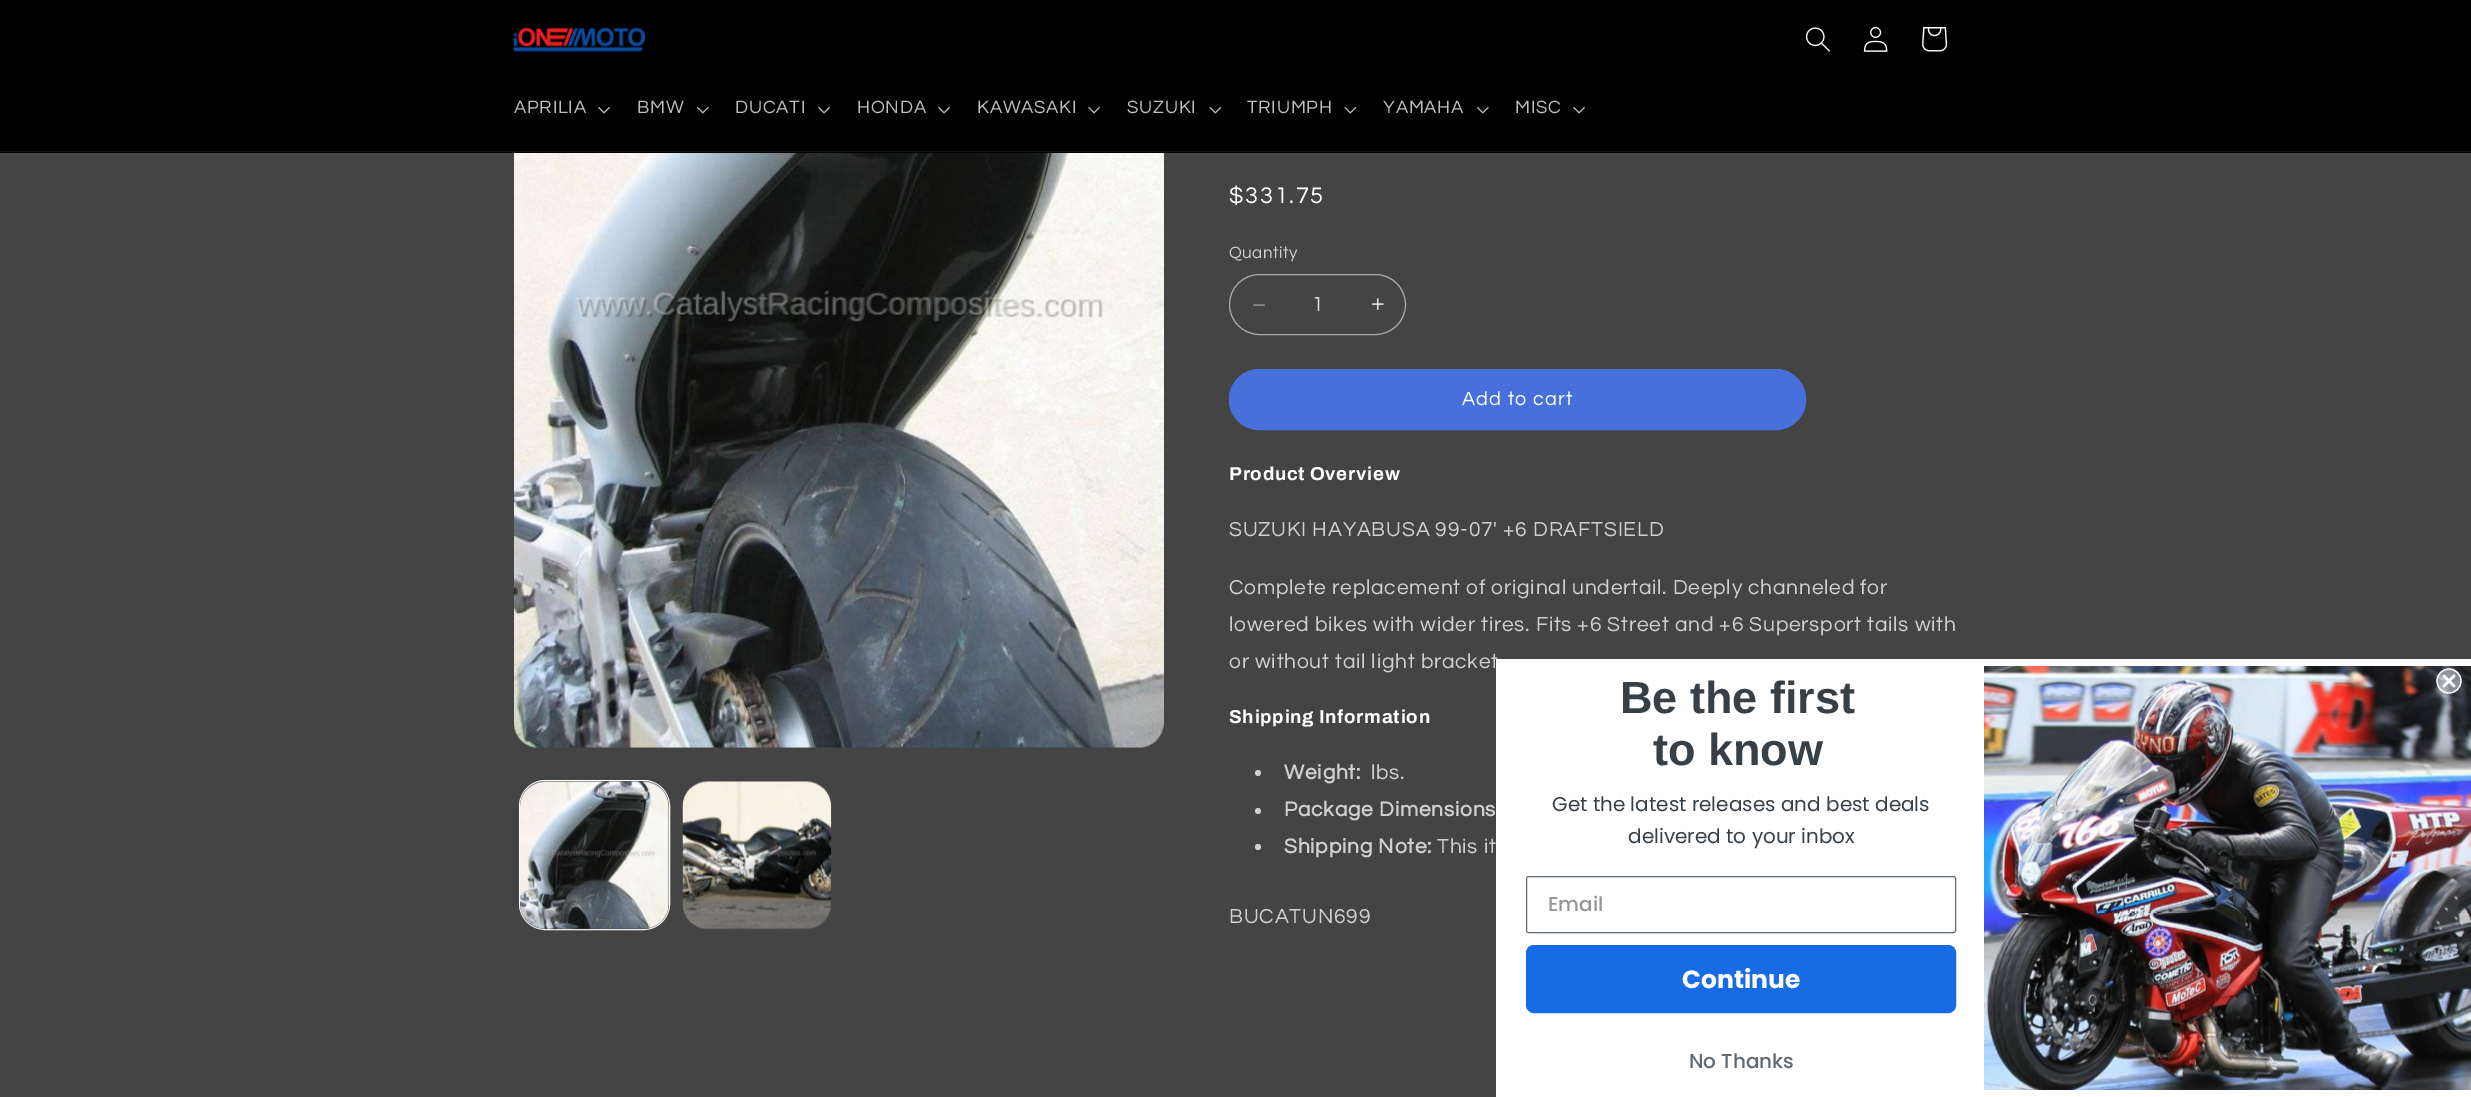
%!PS-Adobe-3.0
%%BoundingBox: 0 0 2471 1097
%%LanguageLevel: 3
%%Pages: 1
%%EndComments
%%BeginProlog
/setink { dup -16 bitshift 255 div exch dup -8 bitshift 255 and 255 div exch 255 and 255 div setrgbcolor } def
/usefont { [ exch dup neg 0 0 3 -1 roll 0 0 ] selectfont } def
/setalpha { dup .setfillconstantalpha .setstrokeconstantalpha } def
/disc { newpath 0 360 arc closepath } def
/rrect { 5 dict begin { /r /h /w /y /x } { exch def } forall
  x r add y moveto x w add y 2 copy h add r arct x w add y h add x 1 index r arct
  x y h add x y r arct x y 2 copy exch w add exch r arct closepath end } def
/drawimage { 5 dict begin { /h /w /y /x /name } { exch def } forall
  gsave x y translate w h scale
  w h 8 [w 0 0 h 0 0] name (r) file false 3 colorimage grestore end } def
%%EndProlog
%%BeginSetup
<< /PageSize [2471 1097] /PageUsesTransparency true >> setpagedevice
%%EndSetup
%%Page: 1 1
0 .pushpdf14devicefilter
0 1097 translate 1 -1 scale
4 setmiterlimit
16#444444 setink
0 0 2471 1097 rectfill
16#000000 setink
0 0 2471 153 rectfill
16#141414 setink
0 151 2471 1 rectfill
(img1.raw) 513 27 132 26 drawimage
(img2.raw) 1805 27 25 25 drawimage
(img3.raw) 1863 26 25 26 drawimage
(img4.raw) 1922 27 26 25 drawimage
/Questrial-Regular 18.5 usefont
16#BFBFBF setink
514 113 moveto 0.8 0 (APRILIA) ashow
(img5.raw) 598 107 12 7 drawimage
637 113 moveto 0.8 0 (BMW) ashow
(img6.raw) 697 107 12 7 drawimage
735 113 moveto 0.8 0 (DUCATI) ashow
(img5.raw) 818 107 12 7 drawimage
857 113 moveto 0.8 0 (HONDA) ashow
(img5.raw) 938 107 12 7 drawimage
977 113 moveto 0.8 0 (KAWASAKI) ashow
(img5.raw) 1088 107 12 7 drawimage
1127 113 moveto 0.8 0 (SUZUKI) ashow
(img7.raw) 1209 107 12 7 drawimage
1247 113 moveto 0.8 0 (TRIUMPH) ashow
(img8.raw) 1344 107 13 7 drawimage
1383 113 moveto 0.8 0 (YAMAHA) ashow
(img6.raw) 1477 107 12 7 drawimage
1515 113 moveto 0.8 0 (MISC) ashow
(img5.raw) 1573 107 12 7 drawimage
(img9.raw) 514 153 650 595 drawimage
16#FFFFFF setink
519.5 780.5 150 149 25.5 rrect stroke
(img10.raw) 520 781 149 149 drawimage
(img11.raw) 682 781 150 149 drawimage
/Questrial-Regular 23.5 usefont
1229 203 moveto 1.75 0 ($331.75) ashow
/Questrial-Regular 17 usefont
16#D0D0D0 setink
1229 258 moveto 0.5 0 (Quantity) ashow
(img12.raw) 1253 304 12 2 drawimage
(img13.raw) 1372 298 12 12 drawimage
16#ABABAB setink
1229.5 274.5 176 60 30 rrect stroke
/Questrial-Regular 21 usefont
16#E3E3E3 setink
1312 311 moveto (1) show
16#4770DB setink
1229 369 577 61 30.5 rrect fill
1229.5 369.5 576 60 30 rrect stroke
/Questrial-Regular 19.75 usefont
16#FFFFFF setink
1462 405 moveto 1.25 0 (Add to cart) ashow
/Archivo-Bold 18.75 usefont
1229 480 moveto 0.75 0 (Product Overview) ashow
/Questrial-Regular 21 usefont
16#D0D0D0 setink
1229 536 moveto 0.8 0 (SUZUKI HAYABUSA 99-07' +6 DRAFTSIELD) ashow
1229 594 moveto 0.8 0 (Complete replacement of original undertail. Deeply channeled for) ashow
1229 631 moveto 0.8 0 (lowered bikes with wider tires. Fits +6 Street and +6 Supersport tails with) ashow
1229 668 moveto 0.8 0 (or without tail light bracket) ashow
/Archivo-Bold 18.75 usefont
16#FFFFFF setink
1229 723 moveto 0.75 0 (Shipping Information) ashow
16#D0D0D0 setink
1258 773 3 disc fill
/Questrial-Bold 21 usefont
1284 779 moveto 0.8 0 (Weight:) ashow
/Questrial-Regular 21 usefont
1371 779 moveto 0.8 0 (lbs.) ashow
1258 811 3 disc fill
/Questrial-Bold 21 usefont
1284 816 moveto 0.8 0 (Package Dimensions) ashow
1258 847 3 disc fill
1284 853 moveto 0.8 0 (Shipping Note:) ashow
/Questrial-Regular 21 usefont
1437 853 moveto 0.8 0 (This it) ashow
1229 923 moveto 0.8 0 (BUCATUN699) ashow
16#FFFFFF setink
1496 659 975 438 rectfill
/LiberationSans-Bold 45 usefont
16#373F47 setink
1620 713 moveto (Be the first) show
1653 765 moveto (to know) show
/Poppins-Regular 20 usefont
1552 811 moveto (Get the latest releases and best deals) show
1628 843 moveto (delivered to your inbox) show
16#606A72 setink
1526.5 876.5 429 56 2 rrect stroke
/Poppins-Medium 20 usefont
16#949596 setink
1548 911 moveto (Email) show
16#176BE5 setink
1530 949 422 60 4 rrect gsave fill grestore
8 setlinewidth
stroke
/Poppins-Bold 25 usefont
16#FFFFFF setink
1682 988 moveto (Continue) show
/Poppins-Medium 20 usefont
16#606A72 setink
1689 1068 moveto (No Thanks) show
(img14.raw) 1984 666 487 424 drawimage
0.65 setalpha
16#B4BBC3 setink
2449 681 12 disc fill
1 setalpha
16#FFFFFF setink
1.2 setlinewidth
2449 681 12 disc stroke
2.5 setlinewidth
1 setlinecap
1 setlinejoin
2444 676 moveto 2454 686 lineto 2444 686 moveto 2454 676 lineto closepath stroke
.poppdf14devicefilter showpage
%%EOF
